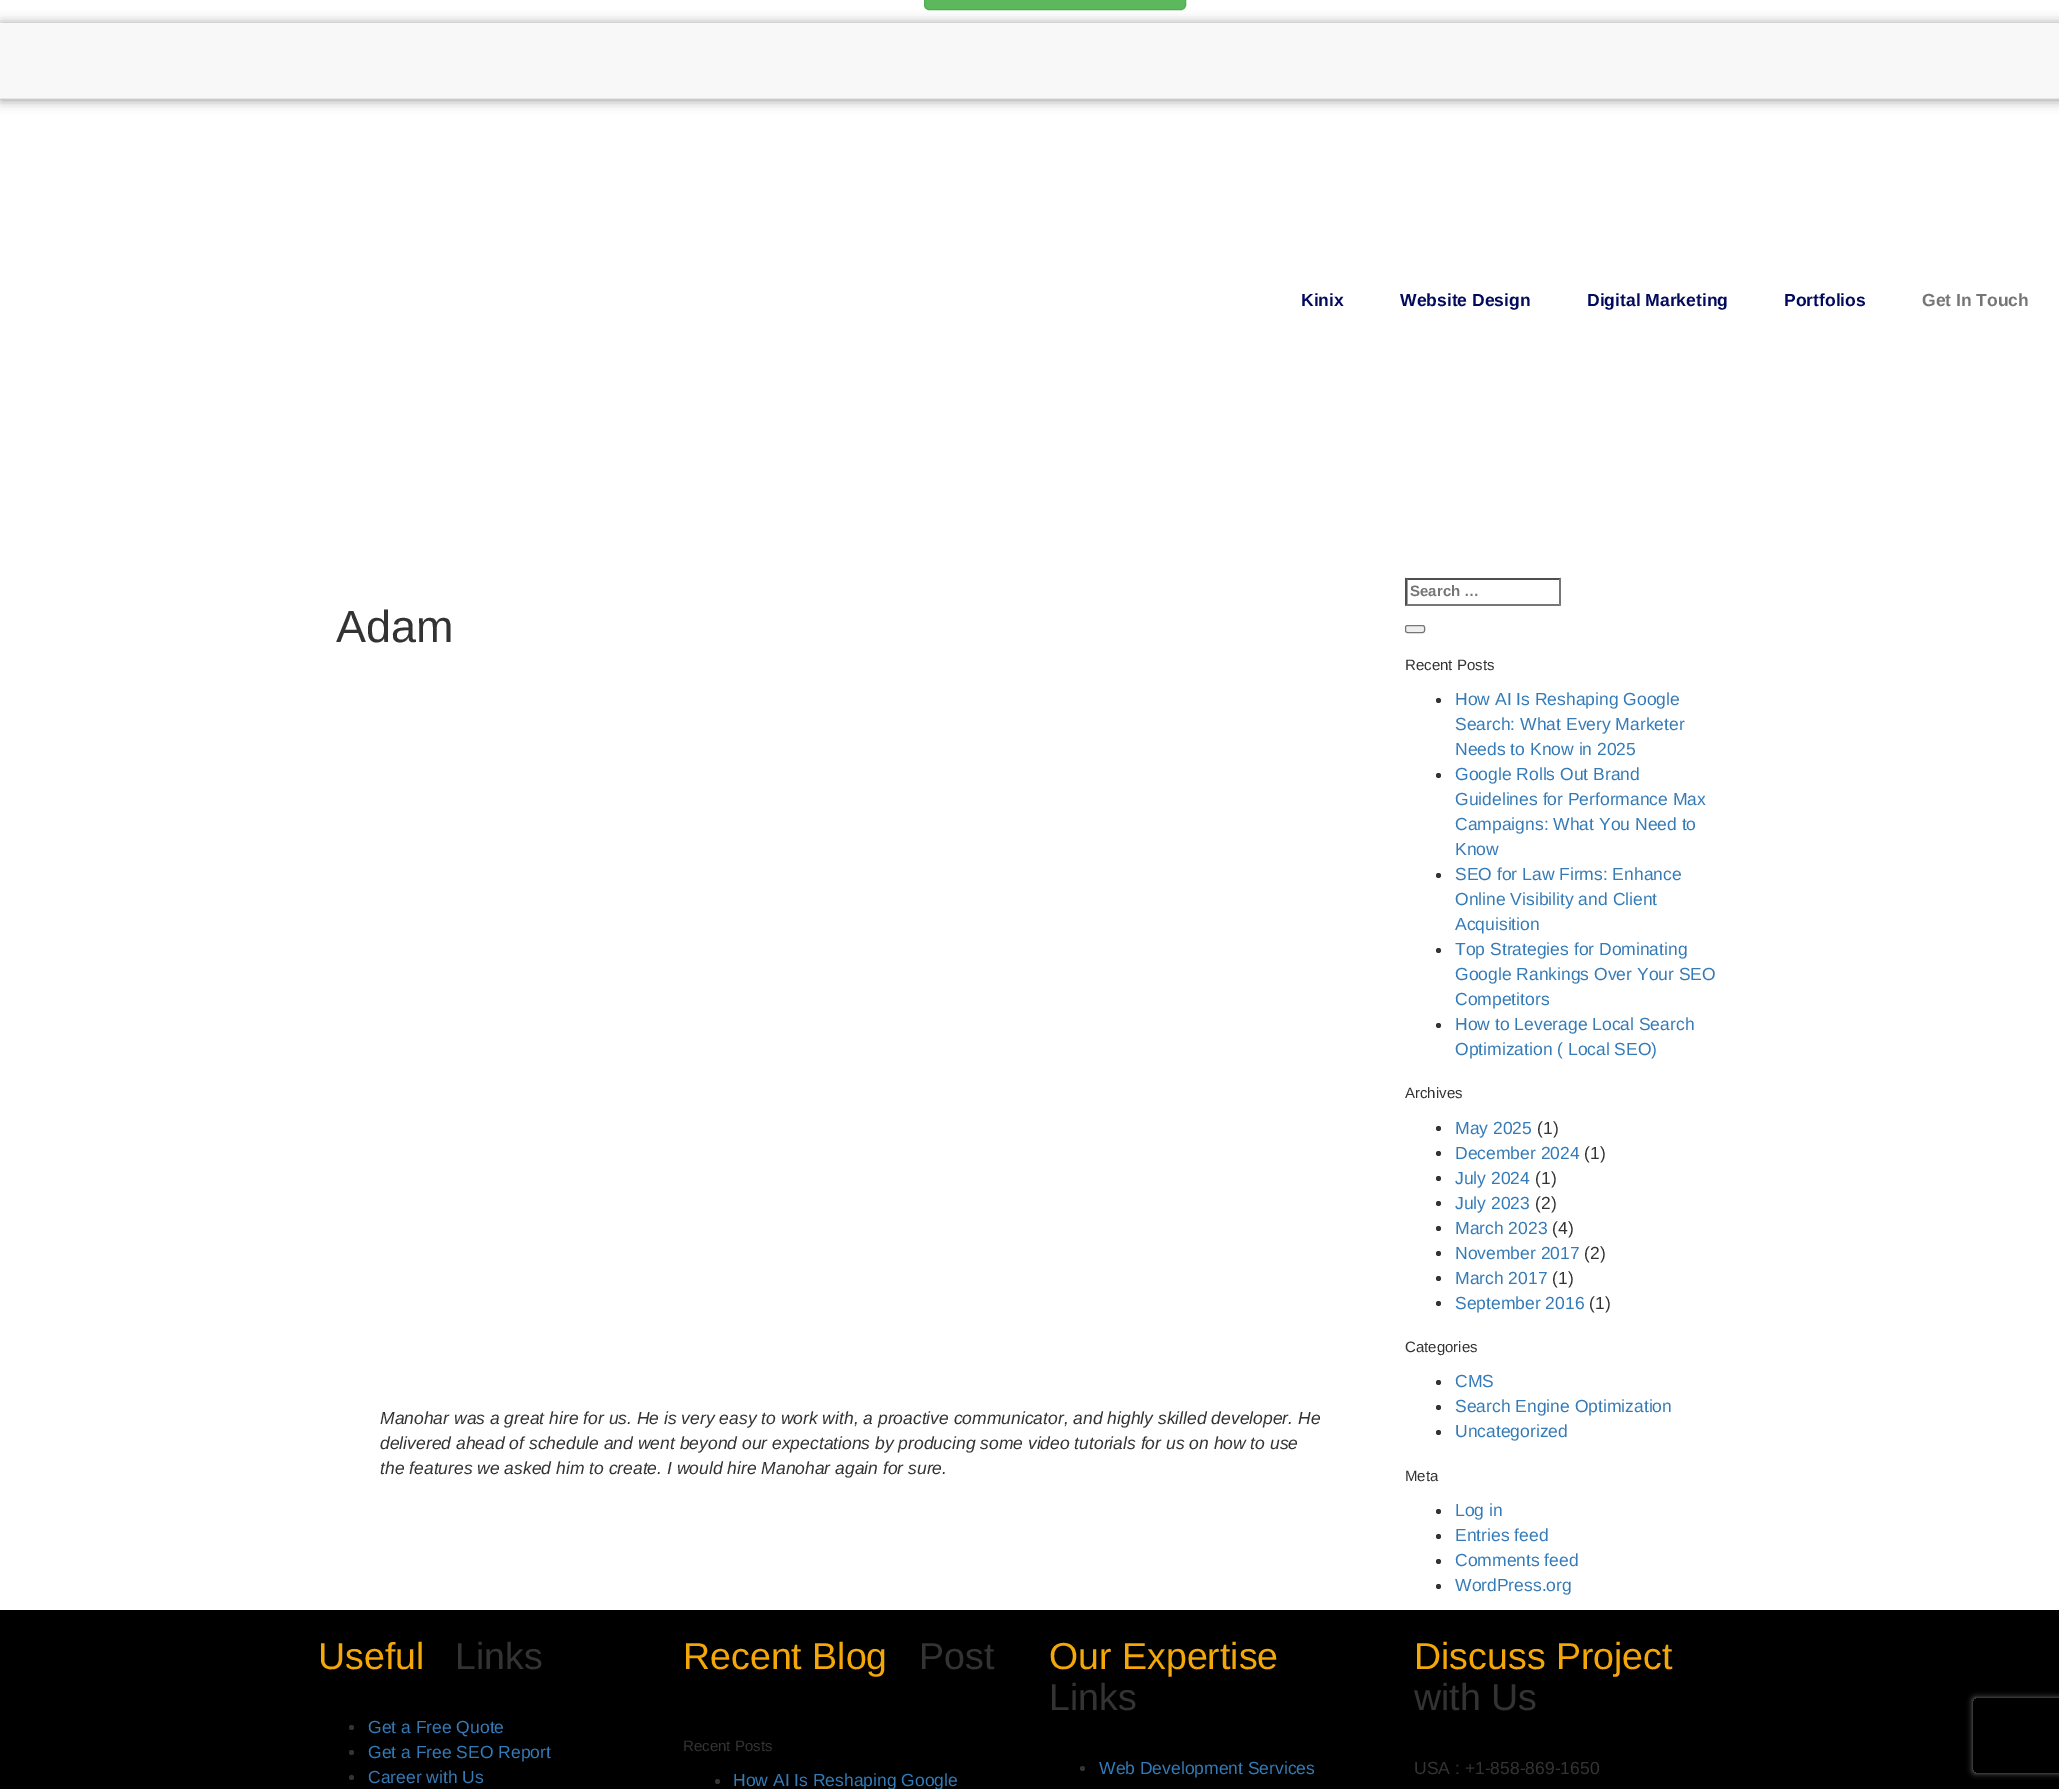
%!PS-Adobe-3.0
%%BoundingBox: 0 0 2059 1789
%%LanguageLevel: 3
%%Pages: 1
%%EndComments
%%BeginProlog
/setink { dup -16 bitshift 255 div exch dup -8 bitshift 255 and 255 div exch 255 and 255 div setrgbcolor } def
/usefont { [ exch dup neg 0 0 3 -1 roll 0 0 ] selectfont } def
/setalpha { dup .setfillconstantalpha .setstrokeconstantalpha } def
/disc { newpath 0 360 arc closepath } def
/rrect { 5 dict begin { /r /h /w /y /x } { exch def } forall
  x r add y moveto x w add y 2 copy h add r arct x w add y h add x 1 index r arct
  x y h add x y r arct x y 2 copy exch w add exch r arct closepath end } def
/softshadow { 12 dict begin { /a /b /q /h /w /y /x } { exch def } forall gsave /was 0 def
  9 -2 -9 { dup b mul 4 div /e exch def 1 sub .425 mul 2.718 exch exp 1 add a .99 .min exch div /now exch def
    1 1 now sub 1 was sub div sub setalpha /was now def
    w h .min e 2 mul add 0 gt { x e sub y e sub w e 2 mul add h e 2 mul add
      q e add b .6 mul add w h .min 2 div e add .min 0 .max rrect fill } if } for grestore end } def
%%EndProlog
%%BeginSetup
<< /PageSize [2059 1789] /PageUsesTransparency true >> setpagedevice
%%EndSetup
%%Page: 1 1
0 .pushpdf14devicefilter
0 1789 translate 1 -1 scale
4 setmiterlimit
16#FFFFFF setink
0 0 2059 1789 rectfill
16#5CB85C setink
924.5 -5.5 261 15 4.5 rrect gsave fill grestore
16#4CAE4C setink
stroke
16#919191 setink
1 24 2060 76 0 6 1 softshadow
16#F8F8F8 setink
0 23 2059 75 rectfill
16#E7E7E7 setink
0 98 2059 1 rectfill
/LiberationSans-Bold 17.5 usefont
16#020A5E setink
[
    [(Kinix) 1301 306]
    [(Website Design) 1400 306]
    [(Digital Marketing) 1587 306]
    [(Portfolios) 1784 306]
] { aload pop moveto show } forall
16#757575 setink
1922 306 moveto (Get In Touch) show
/LiberationSans-Regular 45 usefont
16#333333 setink
336 642 moveto (Adam) show
/LiberationSans-Italic 17.5 usefont
[
    [(Manohar was a great hire for us. He is very easy to work with, a proactive communicator, and highly skilled developer. He) 380 1424]
    [(delivered ahead of schedule and went beyond our expectations by producing some video tutorials for us on how to use) 380 1449]
    [(the features we asked him to create. I would hire Manohar again for sure.) 380 1474]
] { aload pop moveto show } forall
16#4F4F4F setink
1405 578 moveto 1561 578 lineto 1559 580 lineto 1408 580 lineto closepath fill
16#767676 setink
1561 577.5 moveto 1561 606 lineto 1559 604 lineto 1559 580 lineto closepath fill
1561 606 moveto 1405 606 lineto 1408 604 lineto 1559 604 lineto closepath fill
16#4F4F4F setink
1405 606 moveto 1405 577.5 lineto 1407.5 580 lineto 1407.5 604 lineto closepath fill
/LiberationSans-Bold 15 usefont
16#757575 setink
1410 596 moveto (Search …) show
16#EFEFEF setink
1405.5 625.5 19 7 2 rrect gsave fill grestore
16#767676 setink
stroke
/LiberationSans-Regular 15 usefont
16#333333 setink
1405 670 moveto (Recent Posts) show
1438.5 700.5 2.5 disc fill
/LiberationSans-Regular 17.5 usefont
16#337AB7 setink
[
    [(How AI Is Reshaping Google) 1455 705]
    [(Search: What Every Marketer) 1455 730]
    [(Needs to Know in 2025) 1455 755]
] { aload pop moveto show } forall
16#333333 setink
1438.5 775.5 2.5 disc fill
16#337AB7 setink
[
    [(Google Rolls Out Brand) 1455 780]
    [(Guidelines for Performance Max) 1455 805]
    [(Campaigns: What You Need to) 1455 830]
    [(Know) 1455 855]
] { aload pop moveto show } forall
16#333333 setink
1438.5 875.5 2.5 disc fill
16#337AB7 setink
[
    [(SEO for Law Firms: Enhance) 1455 880]
    [(Online Visibility and Client) 1455 905]
    [(Acquisition) 1455 930]
] { aload pop moveto show } forall
16#333333 setink
1438.5 950.5 2.5 disc fill
16#337AB7 setink
[
    [(Top Strategies for Dominating) 1455 955]
    [(Google Rankings Over Your SEO) 1455 980]
    [(Competitors) 1455 1005]
] { aload pop moveto show } forall
16#333333 setink
1438.5 1025.5 2.5 disc fill
16#337AB7 setink
1455 1030 moveto (How to Leverage Local Search) show
1455 1055 moveto (Optimization \( Local SEO\)) show
/LiberationSans-Regular 15 usefont
16#333333 setink
1405 1098 moveto (Archives) show
1438.5 1128.5 2.5 disc fill
/LiberationSans-Regular 17.5 usefont
16#337AB7 setink
1455 1134 moveto (May 2025) show
16#333333 setink
1537 1134 moveto (\(1\)) show
1438.5 1153.5 2.5 disc fill
16#337AB7 setink
1455 1159 moveto (December 2024) show
16#333333 setink
1584 1159 moveto (\(1\)) show
1438.5 1178.5 2.5 disc fill
16#337AB7 setink
1455 1184 moveto (July 2024) show
16#333333 setink
1535 1184 moveto (\(1\)) show
1438.5 1203.5 2.5 disc fill
16#337AB7 setink
1455 1209 moveto (July 2023) show
16#333333 setink
1535 1209 moveto (\(2\)) show
1438.5 1228.5 2.5 disc fill
16#337AB7 setink
1455 1234 moveto (March 2023) show
16#333333 setink
1552 1234 moveto (\(4\)) show
1438.5 1253.5 2.5 disc fill
16#337AB7 setink
1455 1259 moveto (November 2017) show
16#333333 setink
1584 1259 moveto (\(2\)) show
1438.5 1278.5 2.5 disc fill
16#337AB7 setink
1455 1284 moveto (March 2017) show
16#333333 setink
1552 1284 moveto (\(1\)) show
1438.5 1303.5 2.5 disc fill
16#337AB7 setink
1455 1309 moveto (September 2016) show
16#333333 setink
1589 1309 moveto (\(1\)) show
/LiberationSans-Regular 15 usefont
1405 1352 moveto (Categories) show
1438.5 1382.5 2.5 disc fill
/LiberationSans-Regular 17.5 usefont
16#337AB7 setink
1455 1387 moveto (CMS) show
16#333333 setink
1438.5 1407.5 2.5 disc fill
16#337AB7 setink
1455 1412 moveto (Search Engine Optimization) show
16#333333 setink
1438.5 1432.5 2.5 disc fill
16#337AB7 setink
1455 1437 moveto (Uncategorized) show
/LiberationSans-Regular 15 usefont
16#333333 setink
1405 1481 moveto (Meta) show
1438.5 1511.5 2.5 disc fill
/LiberationSans-Regular 17.5 usefont
16#337AB7 setink
1455 1516 moveto (Log in) show
16#333333 setink
1438.5 1536.5 2.5 disc fill
16#337AB7 setink
1455 1541 moveto (Entries feed) show
16#333333 setink
1438.5 1561.5 2.5 disc fill
16#337AB7 setink
1455 1566 moveto (Comments feed) show
16#333333 setink
1438.5 1586.5 2.5 disc fill
16#337AB7 setink
1455 1591 moveto (WordPress.org) show
16#000000 setink
0 1610 2059 179 rectfill
/LiberationSans-Regular 37.5 usefont
16#F4A709 setink
318 1669 moveto (Useful) show
16#333333 setink
455 1669 moveto (Links) show
351.5 1727.5 2.5 disc fill
/LiberationSans-Regular 17.5 usefont
16#337AB7 setink
368 1733 moveto (Get a Free Quote) show
16#333333 setink
351.5 1752.5 2.5 disc fill
16#337AB7 setink
368 1758 moveto (Get a Free SEO Report) show
16#333333 setink
351.5 1777.5 2.5 disc fill
16#337AB7 setink
368 1783 moveto (Career with Us) show
/LiberationSans-Regular 37.5 usefont
16#F4A709 setink
683 1669 moveto (Recent Blog) show
16#333333 setink
919 1669 moveto (Post) show
/LiberationSans-Regular 15 usefont
683 1751 moveto (Recent Posts) show
717.5 1781.5 2.5 disc fill
/LiberationSans-Regular 17.5 usefont
16#337AB7 setink
733 1786 moveto (How AI Is Reshaping Google) show
/LiberationSans-Regular 37.5 usefont
16#F4A709 setink
1049 1669 moveto (Our Expertise) show
16#333333 setink
1049 1710 moveto (Links) show
1082.5 1768.5 2.5 disc fill
/LiberationSans-Regular 17.5 usefont
16#337AB7 setink
1099 1774 moveto (Web Development Services) show
/LiberationSans-Regular 37.5 usefont
16#F4A709 setink
1414 1669 moveto (Discuss Project) show
16#333333 setink
1414 1710 moveto (with Us) show
/LiberationSans-Regular 17.5 usefont
1414 1774 moveto (USA : +1-858-869-1650) show
gsave
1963 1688 moveto 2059 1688 lineto 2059 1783 lineto 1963 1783 lineto closepath 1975.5 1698 moveto 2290.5 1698 lineto 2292 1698 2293 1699 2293 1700.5 curveto 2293 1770.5 lineto 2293 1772 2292 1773 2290.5 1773 curveto 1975.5 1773 lineto 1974 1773 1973 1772 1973 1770.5 curveto 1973 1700.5 lineto 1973 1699 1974 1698 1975.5 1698 curveto closepath eoclip newpath
16#808080 setink
1973 1698 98 75 2.5 3 1 softshadow
grestore
.poppdf14devicefilter showpage
%%EOF
